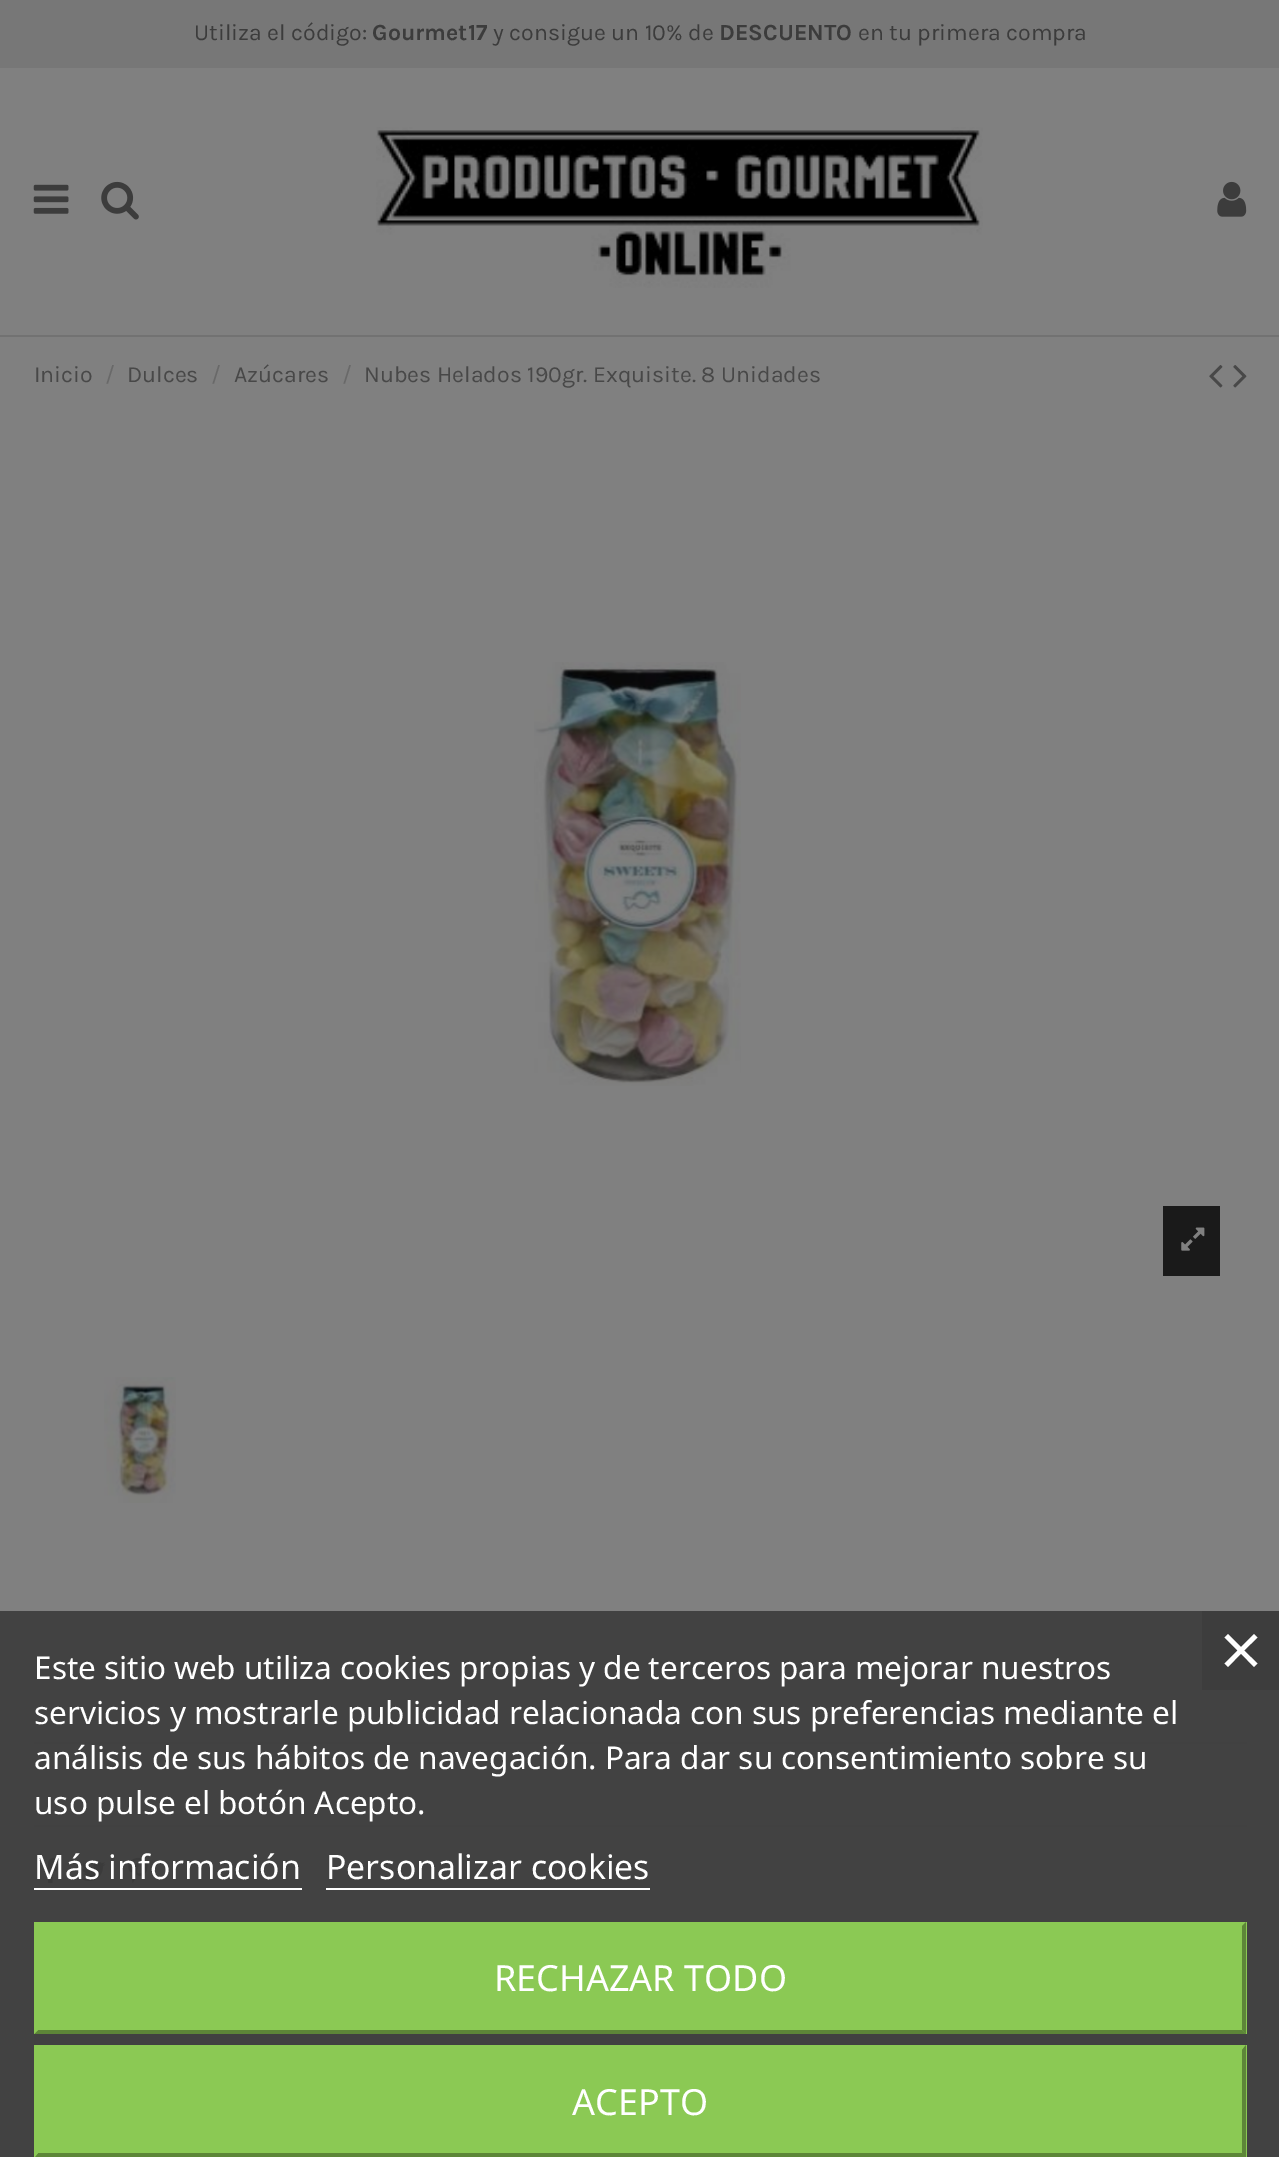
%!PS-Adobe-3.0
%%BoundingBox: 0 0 1279 2157
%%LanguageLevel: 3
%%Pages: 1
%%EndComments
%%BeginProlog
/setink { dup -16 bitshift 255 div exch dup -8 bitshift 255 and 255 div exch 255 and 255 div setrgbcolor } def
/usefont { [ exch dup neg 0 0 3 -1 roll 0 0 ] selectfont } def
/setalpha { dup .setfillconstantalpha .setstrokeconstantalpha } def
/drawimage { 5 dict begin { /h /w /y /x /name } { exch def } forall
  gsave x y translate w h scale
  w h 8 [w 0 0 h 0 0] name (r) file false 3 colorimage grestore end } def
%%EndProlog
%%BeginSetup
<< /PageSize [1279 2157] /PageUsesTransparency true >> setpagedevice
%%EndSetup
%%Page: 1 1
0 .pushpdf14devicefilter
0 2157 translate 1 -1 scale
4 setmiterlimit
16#808080 setink
0 0 1279 2157 rectfill
16#777777 setink
0 0 1279 68 rectfill
/Karla-Regular 23.1 usefont
16#3C3C3C setink
194 40 moveto (Utiliza el código:) show
/Karla-Bold 23.1 usefont
372 40 moveto (Gourmet17) show
/Karla-Regular 23.1 usefont
493 40 moveto (y consigue un 10% de) show
/Karla-Bold 23.1 usefont
719 40 moveto (DESCUENTO) show
/Karla-Regular 23.1 usefont
858 40 moveto (en tu primera compra) show
16#727272 setink
0 335 1279 2 rectfill
(img1.raw) 33 184 36 30 drawimage
(img2.raw) 101 181 38 39 drawimage
(img3.raw) 376 127 607 161 drawimage
(img4.raw) 1217 181 30 36 drawimage
16#484848 setink
34 382 moveto (Inicio) show
16#696969 setink
105 382 moveto (/) show
16#484848 setink
127 382 moveto (Dulces) show
16#696969 setink
211 382 moveto (/) show
16#484848 setink
234 382 moveto (Azúcares) show
16#696969 setink
342 382 moveto (/) show
16#484848 setink
364 382 moveto (Nubes Helados 190gr. Exquisite. 8 Unidades) show
(img5.raw) 1209 365 14 23 drawimage
(img6.raw) 1233 365 14 23 drawimage
(img7.raw) 534 662 207 424 drawimage
16#1A1A1A setink
1163 1206 57 70 rectfill
(img8.raw) 1181 1227 24 24 drawimage
(img9.raw) 104 1377 72 126 drawimage
16#747474 setink
34 1742 1213 2 rectfill
34 1825 1213 2 rectfill
(img10.raw) 44 1857 14 26 drawimage
(img11.raw) 81 1861 25 20 drawimage
(img12.raw) 128 1857 20 26 drawimage
16#777777 setink
34 2034 1213 11 rectfill
0.9 setalpha
16#3B3B3B setink
0 1611 1279 546 rectfill
/NotoSans-Regular 31.5 usefont
1 setalpha
16#FFFFFF setink
[
    [(Este sitio web utiliza cookies propias y de terceros para mejorar nuestros) 34 1679]
    [(servicios y mostrarle publicidad relacionada con sus preferencias mediante el) 34 1724]
    [(análisis de sus hábitos de navegación. Para dar su consentimiento sobre su) 34 1769]
    [(uso pulse el botón Acepto.) 34 1814]
] { aload pop moveto show } forall
/NotoSans-Regular 33.75 usefont
34 1879 moveto (Más información) show
34 1888 268 2 rectfill
326 1879 moveto (Personalizar cookies) show
326 1888 324 2 rectfill
16#8BC954 setink
34 1922 1213 112 rectfill
16#5D8638 setink
1246 1922 moveto 1246 2034 lineto 1242 2030 lineto 1242 1926 lineto closepath fill
1246 2034 moveto 34 2034 lineto 38 2030 lineto 1242 2030 lineto closepath fill
16#8BC954 setink
34 2034 moveto 34 1922 lineto 38 1926 lineto 38 2030 lineto closepath fill
/NotoSans-Regular 36 usefont
16#FFFFFF setink
494 1991 moveto (RECHAZAR TODO) show
16#8BC954 setink
34 2045 1213 112 rectfill
16#5D8638 setink
1246 2045 moveto 1246 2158 lineto 1242 2153 lineto 1242 2050 lineto closepath fill
1246 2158 moveto 34 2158 lineto 38 2153 lineto 1242 2153 lineto closepath fill
16#8BC954 setink
34 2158 moveto 34 2045 lineto 38 2050 lineto 38 2153 lineto closepath fill
16#FFFFFF setink
572 2115 moveto (ACEPTO) show
16#3D3D3D setink
1202 1611 77 79 rectfill
16#FFFFFF setink
1257.5 1637.5 moveto 1254 1634 lineto 1241 1647 lineto 1228 1634 lineto 1224.5 1637.5 lineto 1237.5 1650.5 lineto 1224.5 1663.5 lineto 1228 1667 lineto 1241 1653.5 lineto 1254 1667 lineto 1257.5 1663.5 lineto 1244 1650.5 lineto closepath fill
.poppdf14devicefilter showpage
%%EOF
